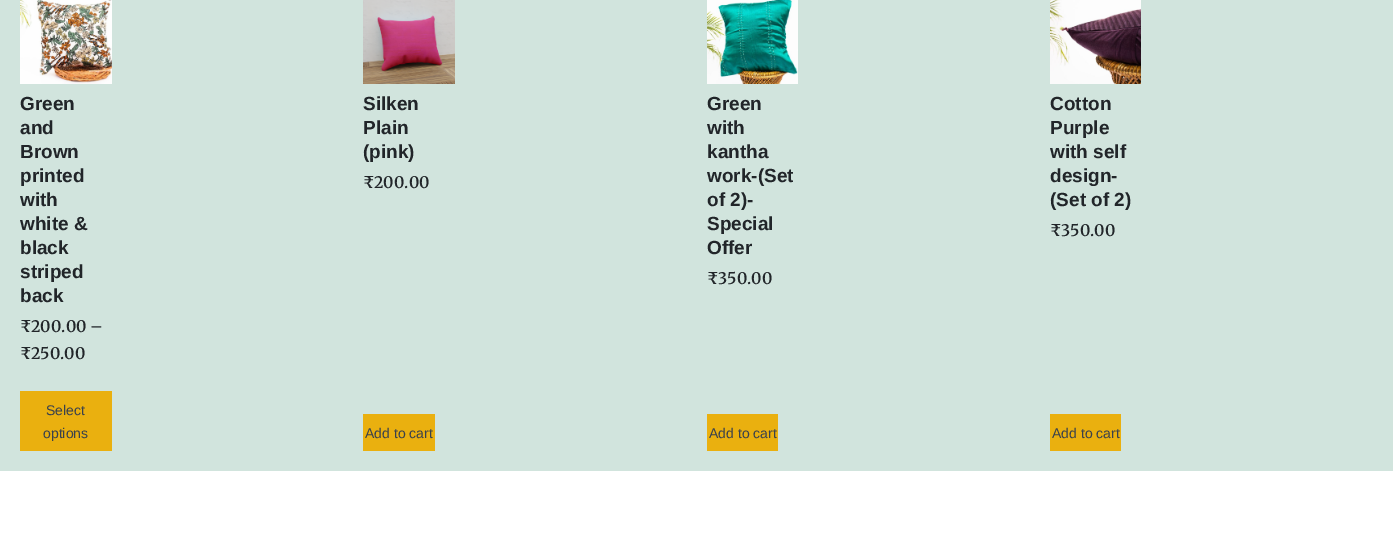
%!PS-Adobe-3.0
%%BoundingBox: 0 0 1393 534
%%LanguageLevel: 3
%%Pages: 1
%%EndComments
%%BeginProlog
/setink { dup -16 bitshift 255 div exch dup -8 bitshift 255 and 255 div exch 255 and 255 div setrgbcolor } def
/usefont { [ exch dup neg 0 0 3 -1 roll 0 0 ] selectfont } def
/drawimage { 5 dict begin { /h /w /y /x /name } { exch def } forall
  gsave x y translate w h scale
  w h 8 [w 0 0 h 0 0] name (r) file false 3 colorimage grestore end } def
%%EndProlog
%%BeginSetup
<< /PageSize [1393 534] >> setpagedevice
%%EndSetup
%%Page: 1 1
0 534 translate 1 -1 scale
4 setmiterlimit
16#D1E4DD setink
0 0 1393 534 rectfill
(img1.raw) 20 0 92 84 drawimage
/LiberationSans-Bold 19 usefont
16#212529 setink
[
    [(Green) 20 110]
    [(and) 20 134]
    [(Brown) 20 158]
    [(printed) 20 182]
    [(with) 20 206]
    [(white &) 20 230]
    [(black) 20 254]
    [(striped) 20 278]
    [(back) 20 302]
] { aload pop moveto show } forall
/Merriweather-SemiBold 16 usefont
20 332 moveto (₹200.00 –) show
20 359 moveto (₹250.00) show
16#EAB00F setink
20 391 92 60 rectfill
/LiberationSans-Regular 14 usefont
16#39414D setink
46 415 moveto (Select) show
43 438 moveto (options) show
(img2.raw) 363 0 92 84 drawimage
/LiberationSans-Bold 19 usefont
16#212529 setink
[
    [(Silken) 363 110]
    [(Plain) 363 134]
    [(\(pink\)) 363 158]
] { aload pop moveto show } forall
/Merriweather-SemiBold 16 usefont
363 188 moveto (₹200.00) show
16#EAB00F setink
363 414 72 37 rectfill
/LiberationSans-Regular 14 usefont
16#39414D setink
365 438 moveto (Add to cart) show
(img3.raw) 707 0 91 84 drawimage
/LiberationSans-Bold 19 usefont
16#212529 setink
[
    [(Green) 707 110]
    [(with) 707 134]
    [(kantha) 707 158]
    [(work-\(Set) 707 182]
    [(of 2\)-) 707 206]
    [(Special) 707 230]
    [(Offer) 707 254]
] { aload pop moveto show } forall
/Merriweather-SemiBold 16 usefont
707 284 moveto (₹350.00) show
16#EAB00F setink
707 414 71 37 rectfill
/LiberationSans-Regular 14 usefont
16#39414D setink
709 438 moveto (Add to cart) show
(img4.raw) 1050 0 91 84 drawimage
/LiberationSans-Bold 19 usefont
16#212529 setink
[
    [(Cotton) 1050 110]
    [(Purple) 1050 134]
    [(with self) 1050 158]
    [(design-) 1050 182]
    [(\(Set of 2\)) 1050 206]
] { aload pop moveto show } forall
/Merriweather-SemiBold 16 usefont
1050 236 moveto (₹350.00) show
16#EAB00F setink
1050 414 71 37 rectfill
/LiberationSans-Regular 14 usefont
16#39414D setink
1052 438 moveto (Add to cart) show
16#FFFFFF setink
0 471 1393 63 rectfill
showpage
%%EOF
